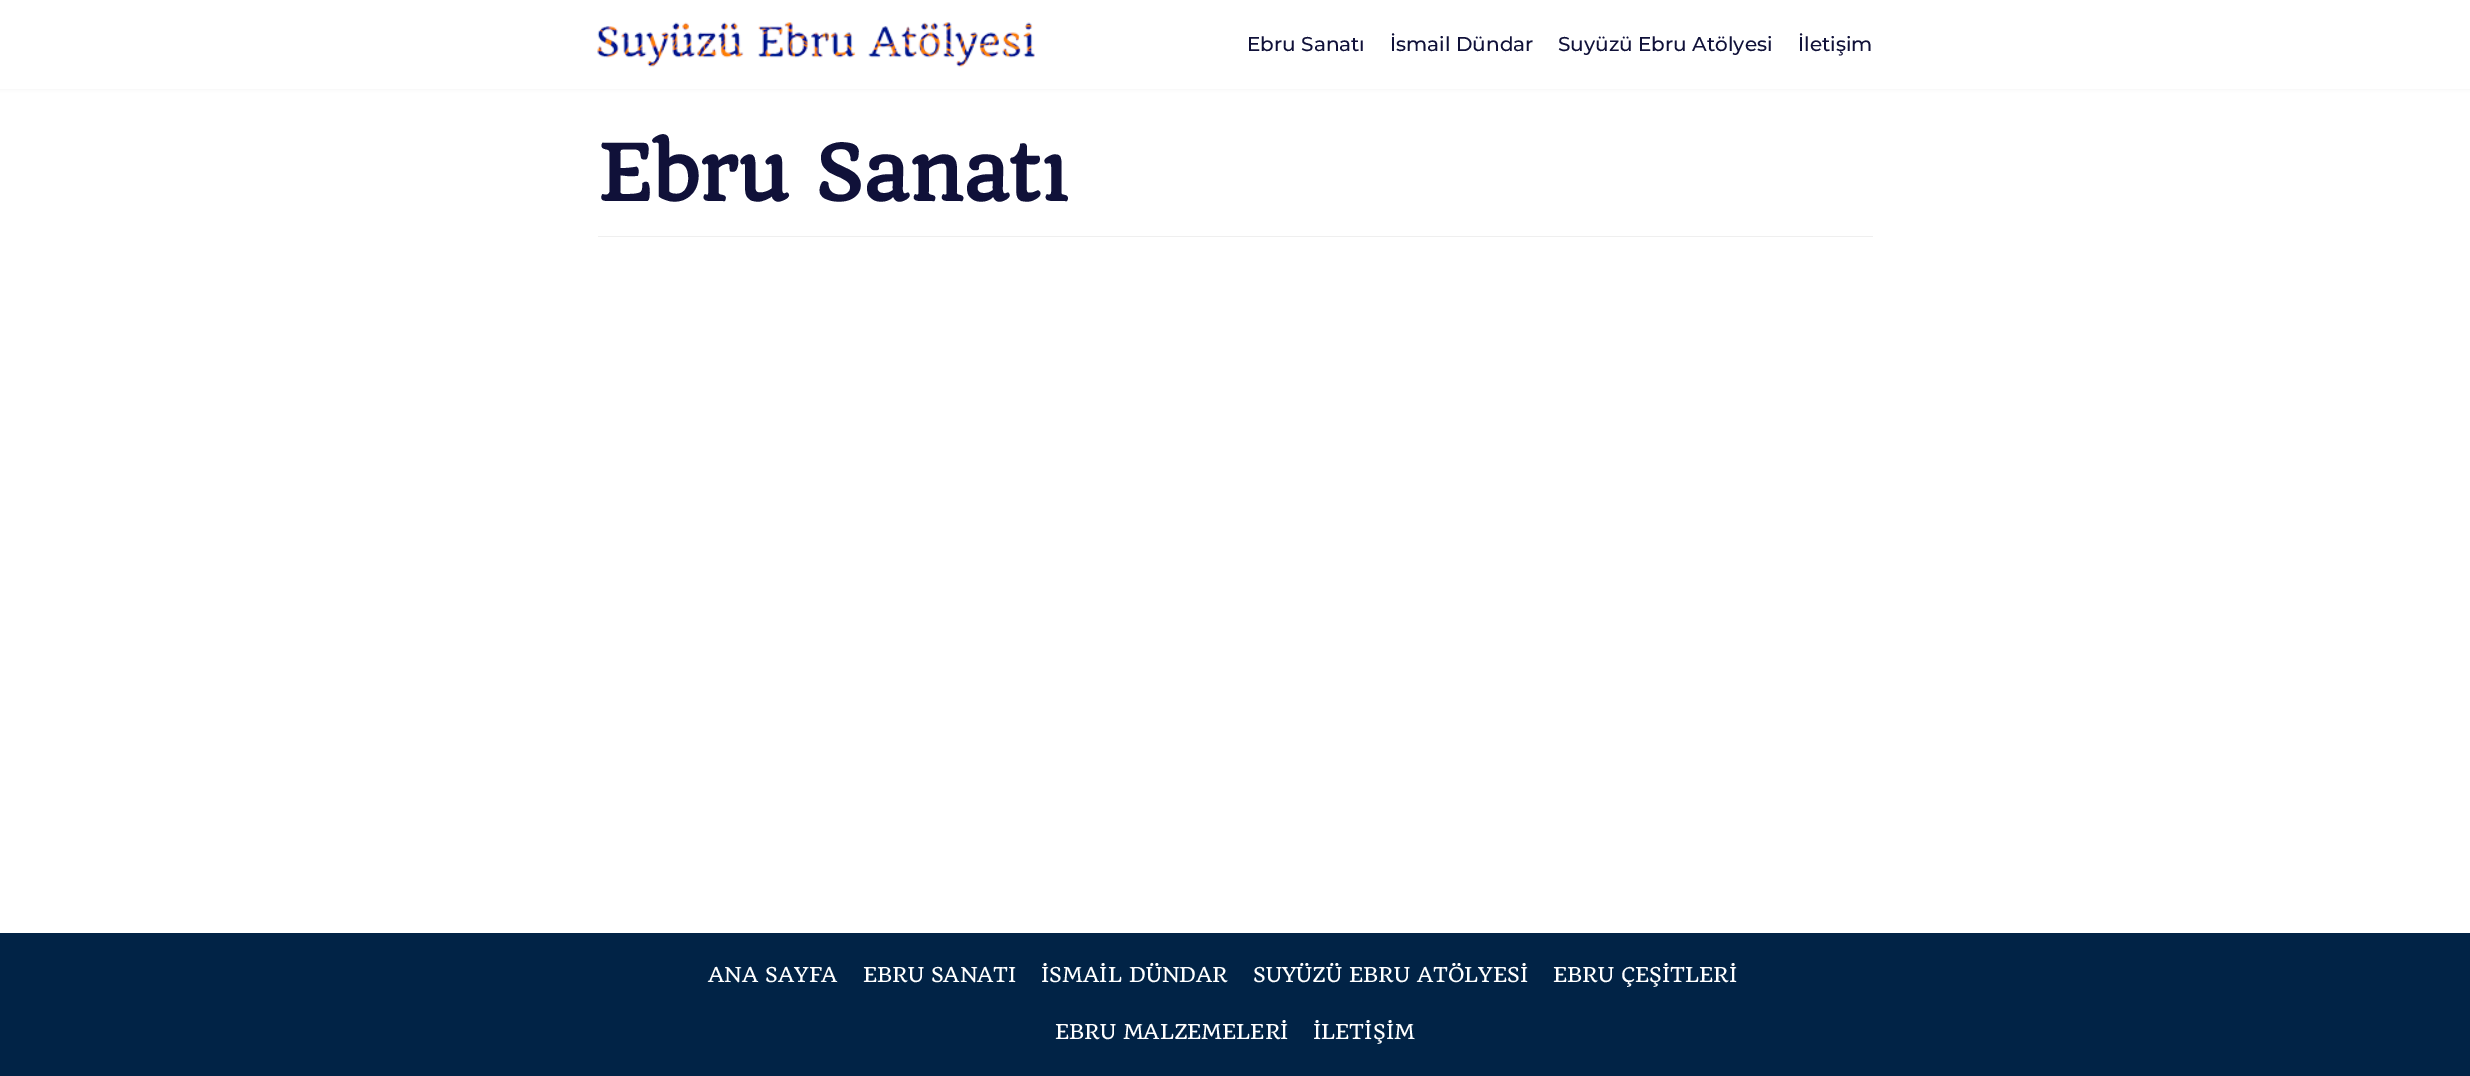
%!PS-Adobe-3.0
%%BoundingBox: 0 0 2470 1076
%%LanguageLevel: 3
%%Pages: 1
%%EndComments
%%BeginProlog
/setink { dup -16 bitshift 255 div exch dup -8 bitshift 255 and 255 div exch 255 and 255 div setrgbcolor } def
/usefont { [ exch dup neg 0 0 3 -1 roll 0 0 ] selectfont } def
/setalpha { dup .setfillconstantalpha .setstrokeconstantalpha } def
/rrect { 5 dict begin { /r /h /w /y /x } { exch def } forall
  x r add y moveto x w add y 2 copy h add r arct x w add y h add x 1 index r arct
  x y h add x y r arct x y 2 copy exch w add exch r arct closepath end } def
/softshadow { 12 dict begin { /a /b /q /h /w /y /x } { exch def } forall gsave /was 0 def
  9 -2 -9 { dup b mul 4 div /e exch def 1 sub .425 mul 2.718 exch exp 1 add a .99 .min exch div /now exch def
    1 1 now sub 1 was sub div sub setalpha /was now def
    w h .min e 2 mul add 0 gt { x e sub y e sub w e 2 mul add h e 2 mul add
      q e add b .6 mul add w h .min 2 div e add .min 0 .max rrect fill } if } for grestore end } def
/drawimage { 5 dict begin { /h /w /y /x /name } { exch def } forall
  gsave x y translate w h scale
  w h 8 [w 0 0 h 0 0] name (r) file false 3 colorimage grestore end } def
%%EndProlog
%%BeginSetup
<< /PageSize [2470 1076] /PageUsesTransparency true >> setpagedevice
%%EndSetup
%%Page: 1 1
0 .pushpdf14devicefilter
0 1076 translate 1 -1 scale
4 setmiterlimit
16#FFFFFF setink
0 0 2470 1076 rectfill
16#000000 setink
0 -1 2470 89 0 2 0.1 softshadow
16#FFFFFF setink
0 0 2470 89 rectfill
(img1.raw) 597 22 438 45 drawimage
/Montserrat-Medium 20 usefont
16#101139 setink
[
    [(Ebru Sanatı) 1247 51]
    [(İsmail Dündar) 1390 51]
    [(Suyüzü Ebru Atölyesi) 1558 51]
    [(İletişim) 1798 51]
] { aload pop moveto show } forall
16#EFEFEF setink
598 236 1275 1 rectfill
/Quando-Bold 75 usefont
16#101139 setink
598 201 moveto (Ebru Sanatı) show
16#012346 setink
0 933 2470 143 rectfill
/Quando-Regular 20 usefont
16#FFFFFF setink
[
    [(ANA SAYFA) 708 982]
    [(EBRU SANATI) 863 982]
    [(İSMAİL DÜNDAR) 1041 982]
    [(SUYÜZÜ EBRU ATÖLYESİ) 1253 982]
    [(EBRU ÇEŞİTLERİ) 1553 982]
    [(EBRU MALZEMELERİ) 1055 1039]
    [(İLETİŞİM) 1313 1039]
] { aload pop moveto show } forall
.poppdf14devicefilter showpage
%%EOF
